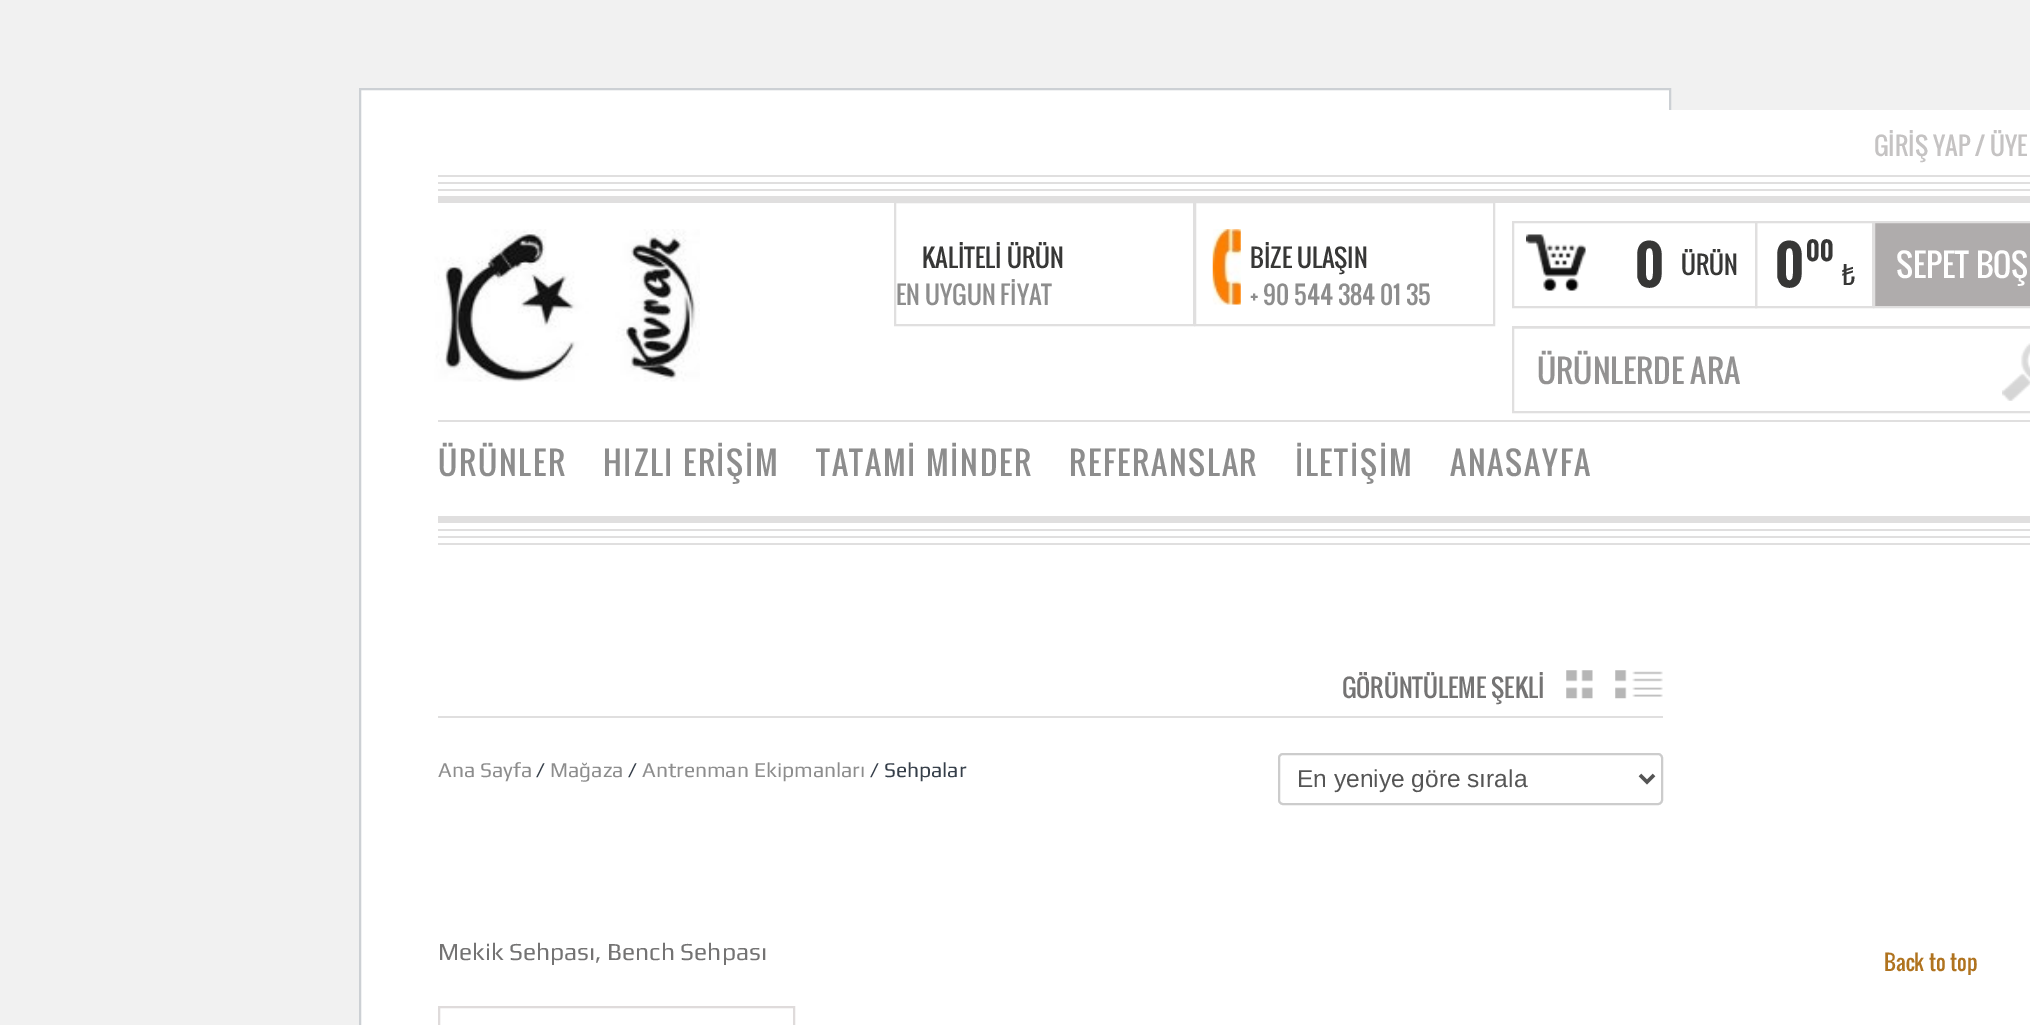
%!PS-Adobe-3.0
%%BoundingBox: 0 0 2030 1025
%%LanguageLevel: 3
%%Pages: 1
%%EndComments
%%BeginProlog
/setink { dup -16 bitshift 255 div exch dup -8 bitshift 255 and 255 div exch 255 and 255 div setrgbcolor } def
/usefont { [ exch dup neg 0 0 3 -1 roll 0 0 ] selectfont } def
/rrect { 5 dict begin { /r /h /w /y /x } { exch def } forall
  x r add y moveto x w add y 2 copy h add r arct x w add y h add x 1 index r arct
  x y h add x y r arct x y 2 copy exch w add exch r arct closepath end } def
/drawimage { 5 dict begin { /h /w /y /x /name } { exch def } forall
  gsave x y translate w h scale
  w h 8 [w 0 0 h 0 0] name (r) file false 3 colorimage grestore end } def
%%EndProlog
%%BeginSetup
<< /PageSize [2030 1025] >> setpagedevice
%%EndSetup
%%Page: 1 1
0 1025 translate 1 -1 scale
4 setmiterlimit
16#F1F1F1 setink
0 0 2030 1025 rectfill
16#FFFFFF setink
360 89 moveto 1670 89 lineto 1670 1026 lineto 360 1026 lineto closepath gsave fill grestore
16#CCD0D4 setink
2 setlinewidth
stroke
16#FFFFFF setink
1669 110 361 915 rectfill
/Oswald-Regular 24.5 usefont
16#C5C3C3 setink
1874 156 moveto (GİRİŞ YAP / ÜYE) show
[
    [438 175 1592 2 16#E0DFDF]
    [438 182 1592 2 16#E0DFDF]
    [438 189 1592 2 16#E0DFDF]
    [438 196 1592 7 16#E0DFDF]
] { aload pop setink rectfill } forall
(img1.raw) 434 229 266 153 drawimage
895 202 299 123 rectstroke
16#373736 setink
922 268 moveto (KALİTELİ ÜRÜN) show
16#8D8D8D setink
896 305 moveto (EN UYGUN FİYAT) show
16#E0DFDF setink
1195 202 299 123 rectstroke
(img2.raw) 1212 229 29 76 drawimage
16#373736 setink
1250 268 moveto (BİZE ULAŞIN) show
16#8D8D8D setink
1250 305 moveto (+ 90 544 384 01 35) show
(img3.raw) 1526 234 60 57 drawimage
16#E0DFDF setink
1513 222 243 85 rectstroke
/Oswald-Bold 52 usefont
16#373736 setink
1635 287 moveto (0) show
/Oswald-Regular 24.5 usefont
1681 275 moveto (ÜRÜN) show
16#E0DFDF setink
1756 222 117 85 rectstroke
/Oswald-Bold 52 usefont
16#373736 setink
1775 287 moveto (0) show
/Oswald-Bold 24.5 usefont
1806 261 moveto (00) show
/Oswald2-Regular 26 usefont
1842 285 moveto (₺) show
16#AFACAC setink
1874 222 moveto 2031 222 lineto 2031 307 lineto 1874 307 lineto closepath gsave fill grestore
16#E0DFDF setink
stroke
/Oswald-Regular 31.5 usefont
16#FFFFFF setink
1896 278 moveto (SEPET BOŞ) show
(img4.raw) 2002 343 28 58 drawimage
16#ECECEC setink
1514 328 516 1 rectfill
16#E0DFDF setink
1513 327 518 85 rectstroke
16#939292 setink
1537 384 moveto (ÜRÜNLERDE ARA) show
16#E0DFDF setink
438 420 1592 2 rectfill
16#8D8D8D setink
438 476 moveto 1.75 0 (ÜRÜNLER) ashow
603 476 moveto 1.75 0 (HIZLI ERİŞİM) ashow
816 476 moveto 1.75 0 (TATAMİ MİNDER) ashow
1069 476 moveto 1.75 0 (REFERANSLAR) ashow
1295 476 moveto 1.75 0 (İLETİŞİM) ashow
1450 476 moveto 1.75 0 (ANASAYFA) ashow
[
    [438 516 1592 7 16#E0DFDF]
    [438 529 1592 2 16#E0DFDF]
    [438 536 1592 2 16#E0DFDF]
    [438 543 1592 2 16#E0DFDF]
    [438 716 1225 2 16#E0DFDF]
] { aload pop setink rectfill } forall
/Oswald-Regular 24.5 usefont
16#747373 setink
1342 698 moveto (GÖRÜNTÜLEME ŞEKLİ) show
(img5.raw) 1566 670 27 29 drawimage
(img6.raw) 1615 670 48 29 drawimage
/Play-Regular 21 usefont
16#8D8D8D setink
438 777 moveto (Ana Sayfa) show
16#363F4A setink
536 777 moveto (/) show
16#8D8D8D setink
550 777 moveto (Mağaza) show
16#363F4A setink
628 777 moveto (/) show
16#8D8D8D setink
642 777 moveto (Antrenman Ekipmanları) show
16#363F4A setink
870 777 moveto (/ Sehpalar) show
16#CCCCCC setink
1279 754 383 50 4 rrect stroke
16#555555 setink
3.5 setlinewidth
1640 775 moveto 1647 782 lineto 1654 775 lineto stroke
/LiberationSans-Regular 24.5 usefont
1297 787 moveto (En yeniye göre sırala) show
/Play-Regular 24.5 usefont
16#747373 setink
438 960 moveto (Mekik Sehpası, Bench Sehpası) show
16#DFDBDB setink
2 setlinewidth
439 1007 355 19 rectstroke
/Oswald-Regular 21 usefont
16#B0731F setink
1884 971 moveto (Back to top) show
showpage
%%EOF
